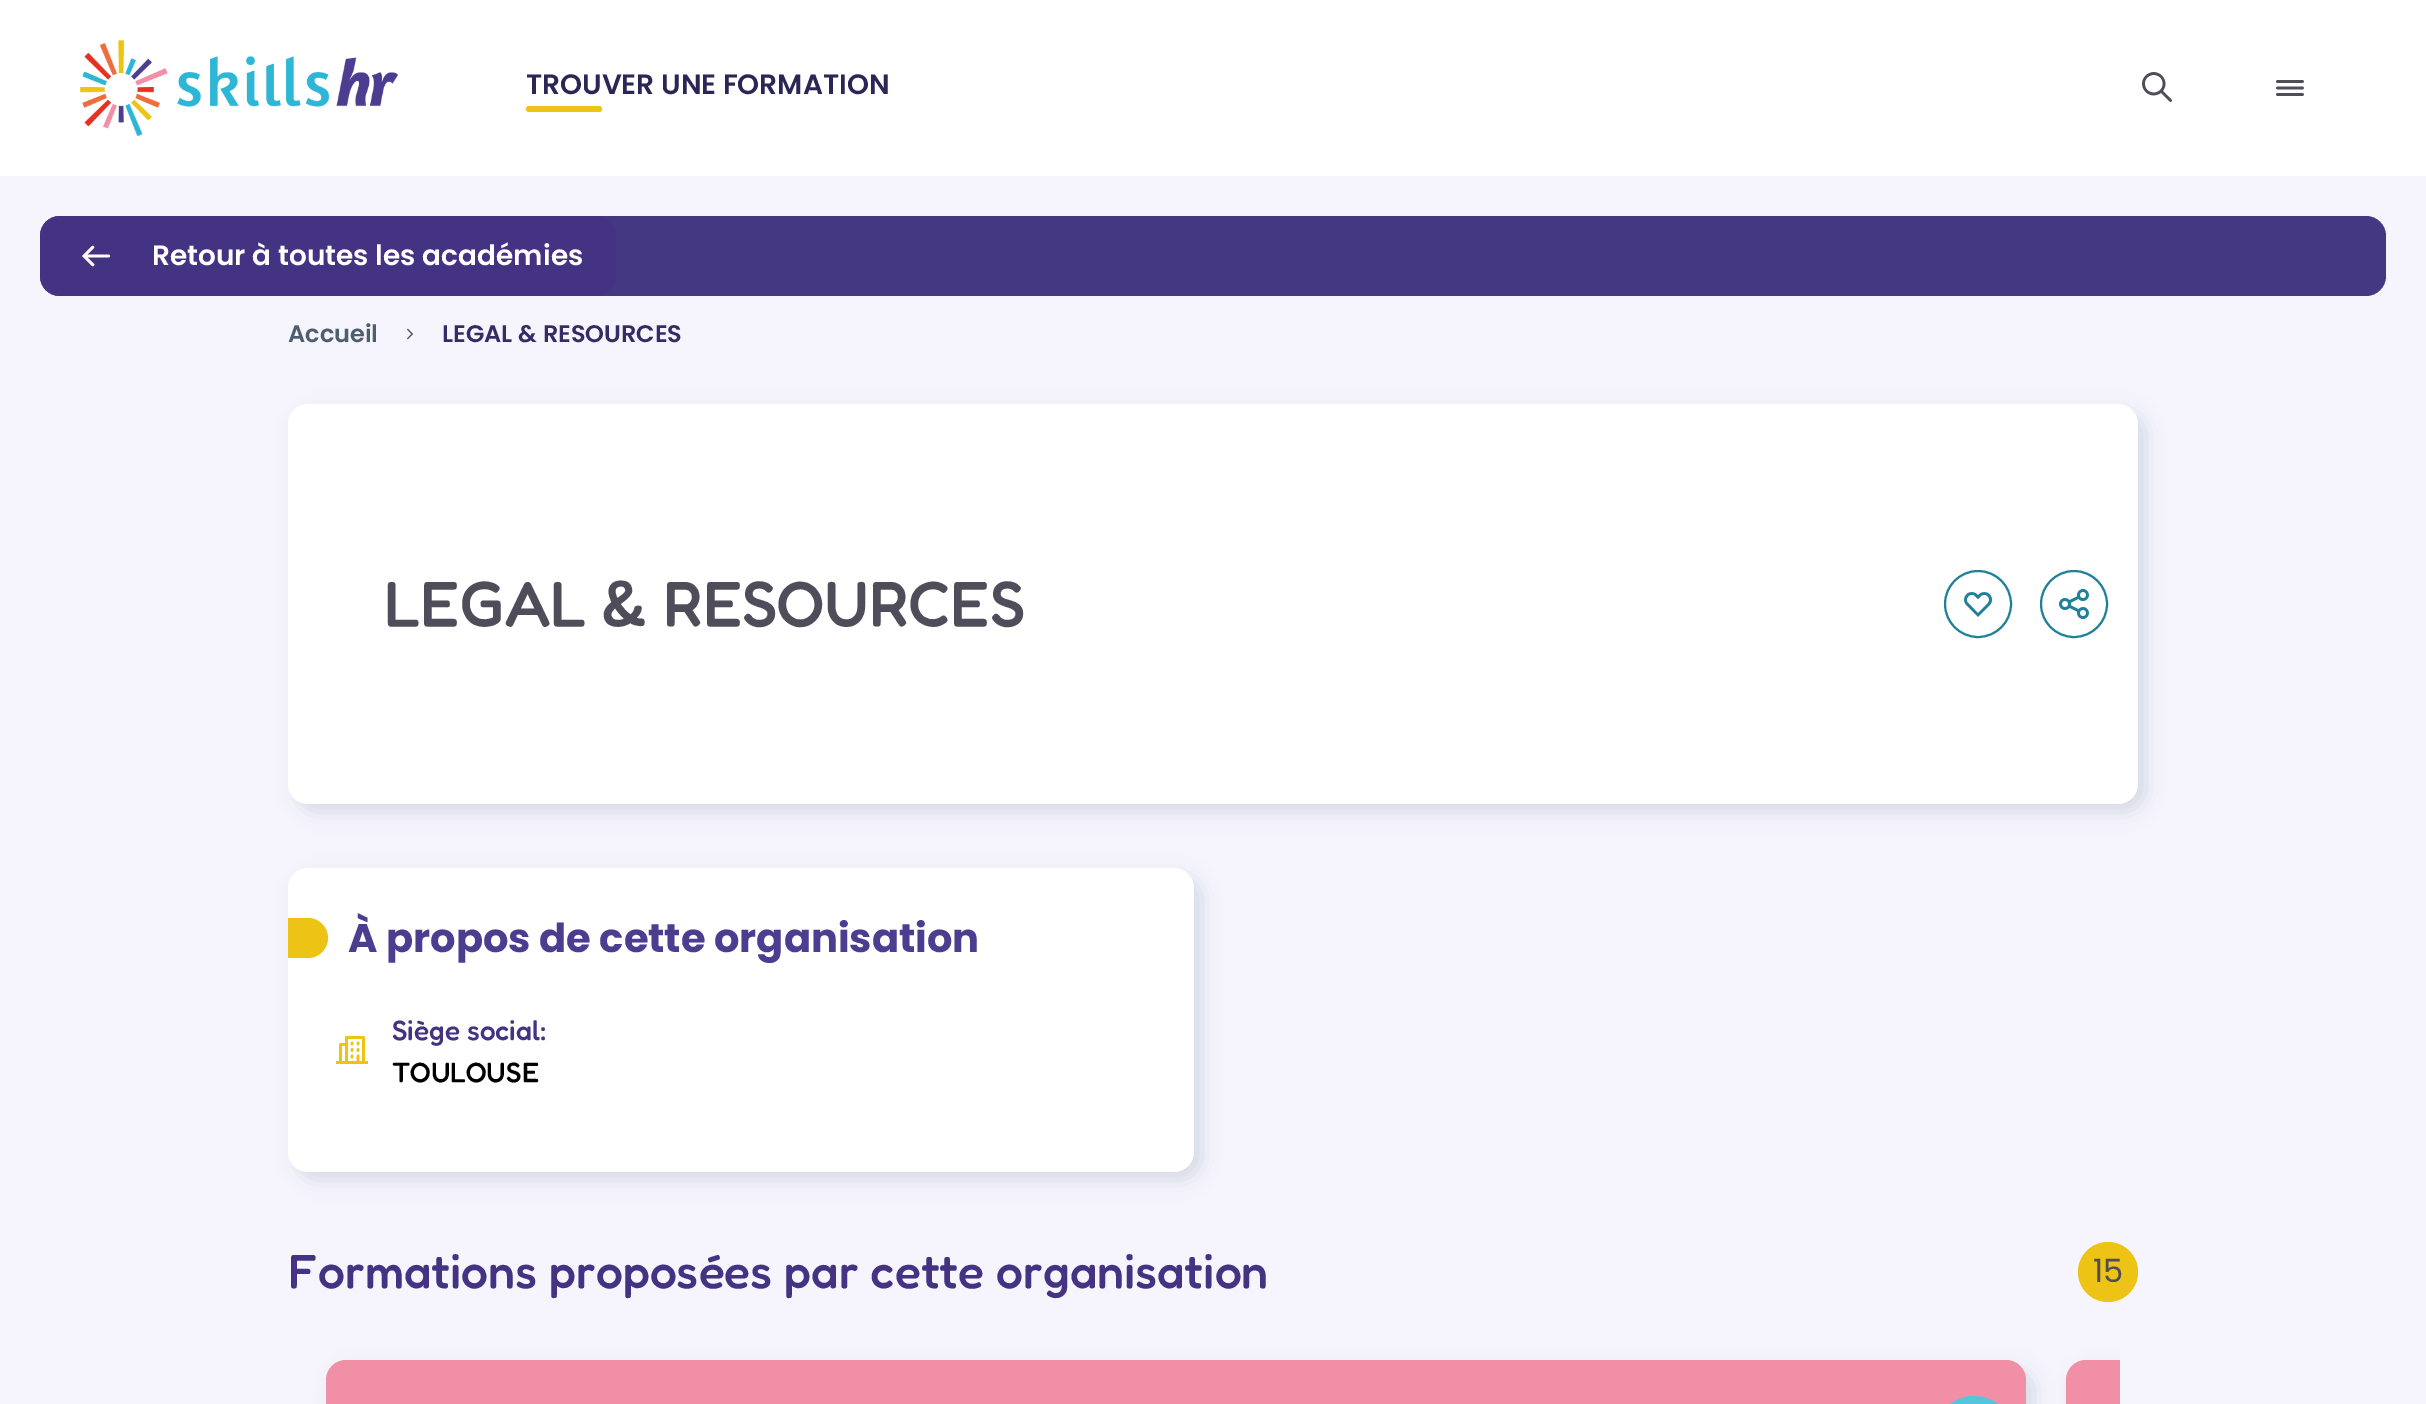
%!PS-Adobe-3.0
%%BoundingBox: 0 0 2426 1404
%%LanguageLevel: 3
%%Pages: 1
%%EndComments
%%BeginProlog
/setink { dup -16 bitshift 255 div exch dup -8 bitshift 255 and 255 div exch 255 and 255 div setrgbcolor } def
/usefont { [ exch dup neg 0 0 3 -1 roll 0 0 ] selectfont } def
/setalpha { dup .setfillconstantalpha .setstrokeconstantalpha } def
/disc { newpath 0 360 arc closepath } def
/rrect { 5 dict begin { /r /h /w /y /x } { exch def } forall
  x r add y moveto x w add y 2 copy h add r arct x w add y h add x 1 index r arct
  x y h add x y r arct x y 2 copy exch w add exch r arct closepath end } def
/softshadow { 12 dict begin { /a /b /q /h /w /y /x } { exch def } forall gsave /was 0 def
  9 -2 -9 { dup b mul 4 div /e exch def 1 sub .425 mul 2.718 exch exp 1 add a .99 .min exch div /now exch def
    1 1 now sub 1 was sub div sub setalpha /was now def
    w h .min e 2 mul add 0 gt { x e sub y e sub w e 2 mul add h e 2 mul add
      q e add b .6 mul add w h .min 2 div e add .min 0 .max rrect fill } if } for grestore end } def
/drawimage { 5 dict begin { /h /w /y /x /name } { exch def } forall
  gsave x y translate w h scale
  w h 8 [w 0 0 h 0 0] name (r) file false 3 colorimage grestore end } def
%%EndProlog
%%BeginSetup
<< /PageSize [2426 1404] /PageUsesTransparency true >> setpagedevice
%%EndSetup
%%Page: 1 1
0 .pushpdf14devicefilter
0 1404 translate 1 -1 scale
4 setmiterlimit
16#F6F5FE setink
0 0 2426 1404 rectfill
16#FFFFFF setink
0 0 2426 176 rectfill
(img1.raw) 80 40 318 96 drawimage
/Poppins-SemiBold 28 usefont
16#2C2656 setink
526 94 moveto (TROUVER UNE FORMATION) show
16#EDC316 setink
526 106 76 6 3 rrect fill
(img2.raw) 2142 72 30 30 drawimage
(img3.raw) 2276 80 28 16 drawimage
16#453883 setink
40 216 2346 80 20 rrect fill
16#443283 setink
40 216 576 80 20 rrect fill
(img4.raw) 82 245 28 22 drawimage
16#FFFFFF setink
152 265 moveto (Retour à toutes les académies) show
/Poppins-SemiBold 24 usefont
16#4D5E6F setink
288 342 moveto (Accueil) show
(img5.raw) 407 328 7 12 drawimage
16#362B66 setink
442 342 moveto (LEGAL & RESOURCES) show
16#D2D9E0 setink
296 412 1850 400 20 10 1 softshadow
16#FFFFFF setink
288 404 1850 400 20 rrect fill
/Fredoka-Medium 64 usefont
16#4E4D59 setink
384 626 moveto (LEGAL & RESOURCES) show
16#1F8198 setink
2 setlinewidth
1978 604 33 disc stroke
(img6.raw) 1964 592 28 25 drawimage
2074 604 33 disc stroke
(img7.raw) 2059 589 30 30 drawimage
16#D2D9E0 setink
296 876 906 304 20 10 1 softshadow
16#FFFFFF setink
288 868 906 304 20 rrect fill
16#EDC316 setink
288 918 moveto 308 918 lineto 319 918 328 927 328 938 curveto 328 949 319 958 308 958 curveto 288 958 lineto closepath fill
/Poppins-Bold 40 usefont
16#4C3D90 setink
348 952 moveto (À propos de cette organisation) show
(img8.raw) 336 1036 32 28 drawimage
/Fredoka-Medium 28 usefont
16#443283 setink
392 1040 moveto (Siège social:) show
16#000000 setink
392 1082 moveto (TOULOUSE) show
/Fredoka-Medium 48 usefont
16#443283 setink
288 1288 moveto (Formations proposées par cette organisation) show
16#EDC316 setink
2108 1272 30 disc fill
/Poppins-Regular 32 usefont
16#4E4D59 setink
2093 1282 moveto (15) show
16#D2D9E0 setink
334 1368 1700 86 20 10 1 softshadow
16#F18FA6 setink
346 1360 moveto 2006 1360 lineto 2017 1360 2026 1369 2026 1380 curveto 2026 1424 lineto 326 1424 lineto 326 1380 lineto 326 1369 335 1360 346 1360 curveto closepath fill
16#55C5DE setink
1934 1396 80 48 40 rrect fill
gsave
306 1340 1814 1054 rectclip
16#D2D9E0 setink
2074 1368 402 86 20 10 1 softshadow
grestore
16#F18FA6 setink
2086 1360 moveto 2120 1360 lineto 2120 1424 lineto 2066 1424 lineto 2066 1380 lineto 2066 1369 2075 1360 2086 1360 curveto closepath fill
.poppdf14devicefilter showpage
%%EOF
